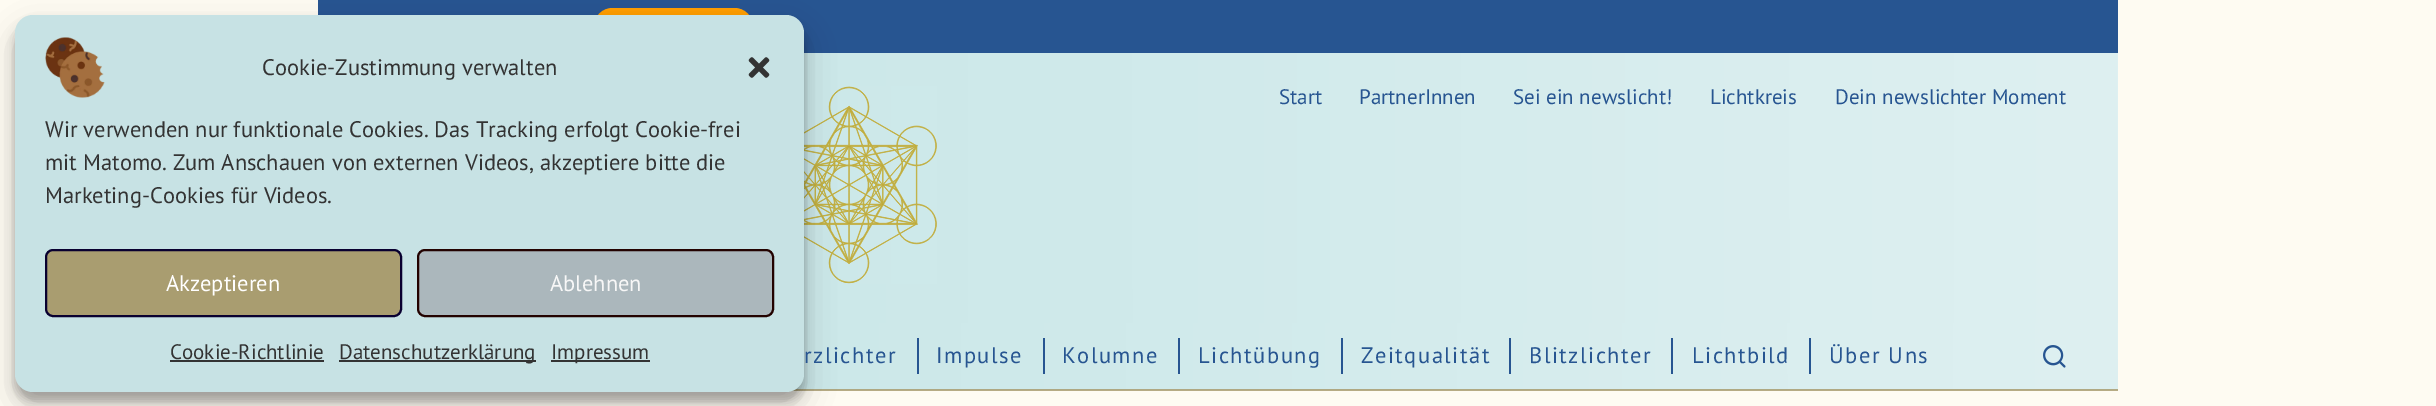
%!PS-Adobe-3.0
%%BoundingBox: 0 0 2436 406
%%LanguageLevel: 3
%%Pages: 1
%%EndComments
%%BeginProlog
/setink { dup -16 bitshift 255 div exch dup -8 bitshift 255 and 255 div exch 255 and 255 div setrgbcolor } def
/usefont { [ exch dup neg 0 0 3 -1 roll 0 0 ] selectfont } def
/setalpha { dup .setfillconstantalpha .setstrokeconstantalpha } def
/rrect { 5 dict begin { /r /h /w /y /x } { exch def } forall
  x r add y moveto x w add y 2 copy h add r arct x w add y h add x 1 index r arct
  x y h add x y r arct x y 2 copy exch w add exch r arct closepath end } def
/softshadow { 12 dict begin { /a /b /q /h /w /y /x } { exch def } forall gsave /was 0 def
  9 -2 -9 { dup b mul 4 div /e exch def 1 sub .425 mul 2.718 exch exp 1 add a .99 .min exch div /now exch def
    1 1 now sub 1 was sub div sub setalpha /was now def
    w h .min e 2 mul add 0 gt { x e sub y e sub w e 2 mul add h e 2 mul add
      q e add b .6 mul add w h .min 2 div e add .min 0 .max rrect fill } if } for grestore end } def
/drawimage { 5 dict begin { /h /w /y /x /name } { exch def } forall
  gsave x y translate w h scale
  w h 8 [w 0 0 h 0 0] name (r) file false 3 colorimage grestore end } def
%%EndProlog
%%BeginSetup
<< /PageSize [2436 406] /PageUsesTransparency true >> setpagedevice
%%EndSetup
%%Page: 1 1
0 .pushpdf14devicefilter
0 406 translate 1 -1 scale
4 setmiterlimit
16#FEFBF2 setink
0 0 2436 406 rectfill
16#B6AB84 setink
792 390 1326 1 rectfill
16#275591 setink
318 0 1800 53 rectfill
16#FF9D00 setink
594 8 159 37 18.5 rrect fill
gsave 804 53 moveto 2118 53 lineto 2118 323 lineto 804 323 lineto closepath clip newpath
<< /ShadingType 2 /ColorSpace /DeviceRGB /Coords [318 188 2118 187] /Extend [true true] /Function << /FunctionType 2 /Domain [0 1] /C0 [0.773 0.898 0.902] /C1 [0.871 0.941 0.945] /N 1 >> >> shfill grestore
(img3.raw) 804 86 133 198 drawimage
gsave 796 323 moveto 2118 323 lineto 2118 389 lineto 796 389 lineto closepath clip newpath
<< /ShadingType 2 /ColorSpace /DeviceRGB /Coords [318 356 2118 355] /Extend [true true] /Function << /FunctionType 2 /Domain [0 1] /C0 [0.773 0.898 0.902] /C1 [0.871 0.941 0.945] /N 1 >> >> shfill grestore
gsave 794 389 moveto 2118 389 lineto 2118 390 lineto 794 390 lineto closepath clip newpath
<< /ShadingType 2 /ColorSpace /DeviceRGB /Coords [318 356 2118 355] /Extend [true true] /Function << /FunctionType 2 /Domain [0 1] /C0 [0.678 0.659 0.51] /C1 [0.694 0.663 0.518] /N 1 >> >> shfill grestore
16#000000 setink
15 24 789 377 18 4.5 0.23 softshadow
15 30 789 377 18 15 0.19 softshadow
16#C7E2E4 setink
15 15 789 377 18 rrect fill
(img1.raw) 45 37 60 61 drawimage
/PTSans-Regular 22.5 usefont
16#333333 setink
262 75 moveto (Cookie-Zustimmung verwalten) show
(img2.raw) 748 57 22 21 drawimage
[
    [(Wir verwenden nur funktionale Cookies. Das Tracking erfolgt Cookie-frei) 45 137]
    [(mit Matomo. Zum Anschauen von externen Videos, akzeptiere bitte die) 45 170]
    [(Marketing-Cookies für Videos.) 45 203]
] { aload pop moveto show } forall
16#A99D70 setink
46 250 355 66 7 rrect gsave fill grestore
16#090030 setink
2 setlinewidth
stroke
16#FFFFFF setink
166 291 moveto (Akzeptieren) show
16#ABB7BC setink
418 250 355 66 7 rrect gsave fill grestore
16#230200 setink
stroke
16#F7F7F7 setink
550 291 moveto (Ablehnen) show
/PTSans-Regular 21 usefont
16#333333 setink
170 359 moveto (Cookie-Richtlinie) show
170 360 154 2 rectfill
339 360 197 2 rectfill
339 359 moveto (Datenschutzerklärung) show
551 360 99 2 rectfill
551 359 moveto (Impressum) show
16#275591 setink
[
    [(Start) 1279 104]
    [(PartnerInnen) 1359 104]
    [(Sei ein newslicht!) 1513 104]
    [(Lichtkreis) 1710 104]
    [(Dein newslichter Moment) 1835 104]
] { aload pop moveto show } forall
917 338 2 36 rectfill
/PTSans-Regular 22.5 usefont
804 363 moveto 1.5 0 (rzlichter) ashow
1043 338 2 36 rectfill
936 363 moveto 1.5 0 (Impulse) ashow
1178 338 2 36 rectfill
1062 363 moveto 1.5 0 (Kolumne) ashow
1341 338 2 36 rectfill
1198 363 moveto 1.5 0 (Lichtübung) ashow
1509 338 2 36 rectfill
1361 363 moveto 1.5 0 (Zeitqualität) ashow
1671 338 2 36 rectfill
1529 363 moveto 1.5 0 (Blitzlichter) ashow
1809 338 2 36 rectfill
1692 363 moveto 1.5 0 (Lichtbild) ashow
1829 363 moveto 1.5 0 (Über Uns) ashow
(img4.raw) 2043 345 23 23 drawimage
.poppdf14devicefilter showpage
%%EOF
